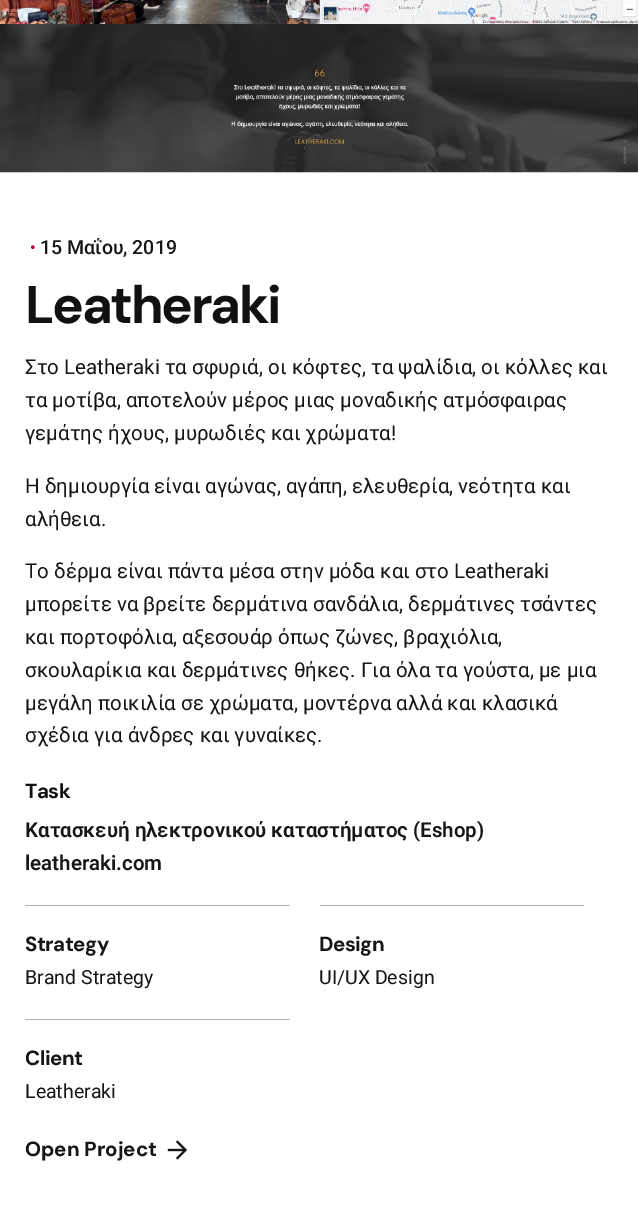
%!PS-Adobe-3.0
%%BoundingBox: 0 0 638 1211
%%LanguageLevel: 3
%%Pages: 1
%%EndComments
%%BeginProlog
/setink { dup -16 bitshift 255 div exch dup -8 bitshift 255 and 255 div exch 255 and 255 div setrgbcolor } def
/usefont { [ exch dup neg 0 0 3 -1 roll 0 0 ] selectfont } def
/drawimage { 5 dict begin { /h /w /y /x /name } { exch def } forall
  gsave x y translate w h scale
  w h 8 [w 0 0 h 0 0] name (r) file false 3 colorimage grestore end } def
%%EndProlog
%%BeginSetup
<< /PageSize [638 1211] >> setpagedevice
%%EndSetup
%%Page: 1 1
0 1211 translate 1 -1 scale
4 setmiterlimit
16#FFFFFF setink
0 0 638 1211 rectfill
(img1.raw) 0 0 638 173 drawimage
/Roboto-Medium 16 usefont
16#B50038 setink
30 253 moveto (•) show
/Roboto-Medium 19.5 usefont
16#161519 setink
40 254 moveto (15 Μαΐου, 2019) show
/DMSans-Bold 53 usefont
16#111013 setink
25 323 moveto -2.4 0 (Leatheraki) ashow
/Roboto-Regular 20.5 usefont
16#161519 setink
[
    [(Στο Leatheraki τα σφυριά, οι κόφτες, τα ψαλίδια, οι κόλλες και) 25 374]
    [(τα μοτίβα, αποτελούν μέρος μιας μοναδικής ατμόσφαιρας) 25 407]
    [(γεμάτης ήχους, μυρωδιές και χρώματα!) 25 440]
    [(Η δημιουργία είναι αγώνας, αγάπη, ελευθερία, νεότητα και) 25 493]
    [(αλήθεια.) 25 526]
    [(Το δέρμα είναι πάντα μέσα στην μόδα και στο Leatheraki) 25 578]
    [(μπορείτε να βρείτε δερμάτινα σανδάλια, δερμάτινες τσάντες) 25 611]
    [(και πορτοφόλια, αξεσουάρ όπως ζώνες, βραχιόλια,) 25 644]
    [(σκουλαρίκια και δερμάτινες θήκες. Για όλα τα γούστα, με μια) 25 677]
    [(μεγάλη ποικιλία σε χρώματα, μοντέρνα αλλά και κλασικά) 25 710]
    [(σχέδια για άνδρες και γυναίκες.) 25 742]
] { aload pop moveto show } forall
/DMSans-Bold 20.5 usefont
16#111013 setink
25 798 moveto -0.5 0 (Task) ashow
/Roboto-SemiBold 20.5 usefont
16#161519 setink
25 837 moveto (Κατασκευή ηλεκτρονικού καταστήματος \(Eshop\)) show
25 870 moveto (leatheraki.com) show
16#B2B2B6 setink
25 905 265 1 rectfill
/DMSans-Bold 20.5 usefont
16#161519 setink
25 951 moveto -0.5 0 (Strategy) ashow
/Roboto-Regular 19.5 usefont
25 984 moveto (Brand Strategy) show
16#B2B2B6 setink
320 905 264 1 rectfill
/DMSans-Bold 20.5 usefont
16#161519 setink
319 951 moveto -0.5 0 (Design) ashow
/Roboto-Regular 19.5 usefont
319 984 moveto (UI/UX Design) show
16#B2B2B6 setink
25 1019 265 1 rectfill
/DMSans-Bold 20.5 usefont
16#161519 setink
25 1065 moveto -0.5 0 (Client) ashow
/Roboto-Regular 19.5 usefont
25 1098 moveto (Leatheraki) show
/DMSans-Bold 20.5 usefont
25 1156 moveto (Open Project) show
(img2.raw) 167 1140 20 20 drawimage
showpage
%%EOF
